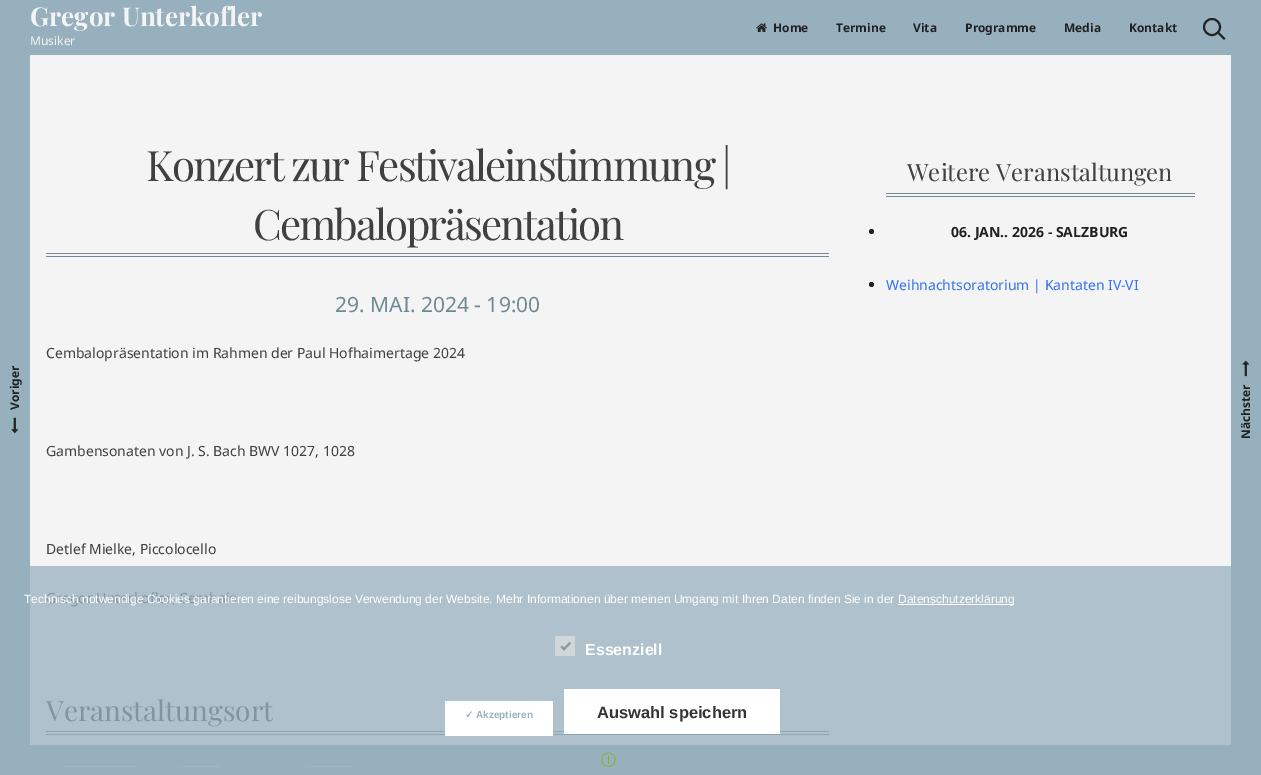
%!PS-Adobe-3.0
%%BoundingBox: 0 0 1261 775
%%LanguageLevel: 3
%%Pages: 1
%%EndComments
%%BeginProlog
/setink { dup -16 bitshift 255 div exch dup -8 bitshift 255 and 255 div exch 255 and 255 div setrgbcolor } def
/usefont { [ exch dup neg 0 0 3 -1 roll 0 0 ] selectfont } def
/disc { newpath 0 360 arc closepath } def
/drawimage { 5 dict begin { /h /w /y /x /name } { exch def } forall
  gsave x y translate w h scale
  w h 8 [w 0 0 h 0 0] name (r) file false 3 colorimage grestore end } def
%%EndProlog
%%BeginSetup
<< /PageSize [1261 775] >> setpagedevice
%%EndSetup
%%Page: 1 1
0 775 translate 1 -1 scale
4 setmiterlimit
16#F4F4F4 setink
0 0 1261 775 rectfill
16#AEC1CC setink
30 566 1201 179 rectfill
16#97B0BE setink
0 0 1261 55 rectfill
/PlayfairDisplay-Bold 26 usefont
16#F4F4F4 setink
30 26 moveto (Gregor Unterkofler) show
/NotoSans-Regular 12 usefont
30 45 moveto (Musiker) show
(img1.raw) 756 23 11 9 drawimage
/NotoSans-Bold 12 usefont
16#212121 setink
[
    [(Home) 773 32]
    [(Termine) 836 32]
    [(Vita) 913 32]
    [(Programme) 965 32]
    [(Media) 1064 32]
    [(Kontakt) 1129 32]
] { aload pop moveto show } forall
16#242423 setink
2 setlinewidth
1212 27 8 disc stroke
1219 32 moveto 1225.5 38.5 lineto 1224 40 lineto 1217.5 33.5 lineto closepath fill
16#6F8995 setink
46 253 783 1 rectfill
46 256 783 1 rectfill
/PlayfairDisplay-Regular 42 usefont
16#404040 setink
146 181 moveto -2 0 (Konzert zur Festivaleinstimmung |) ashow
253 240 moveto -2 0 (Cembalopräsentation) ashow
/NotoSans-Regular 21 usefont
16#6F8995 setink
335 312 moveto (29. MAI. 2024 - 19:00) show
/NotoSans-Regular 14 usefont
16#404040 setink
[
    [(Cembalopräsentation im Rahmen der Paul Hofhaimertage 2024) 46 358]
    [(Gambensonaten von J. S. Bach BWV 1027, 1028) 46 456]
    [(Detlef Mielke, Piccolocello) 46 554]
] { aload pop moveto show } forall
16#81949F setink
46 603 moveto (Gregor Unterkofler, Cembalo) show
16#8DA6B4 setink
46 731 783 1 rectfill
46 734 783 1 rectfill
/PlayfairDisplay-Regular 28 usefont
16#81949F setink
46 721 moveto (Veranstaltungsort) show
16#97B0BE setink
0 55 30 690 rectfill
/NotoSans-Bold 12 usefont
16#212121 setink
gsave 19 410 translate -90 rotate 0 0 moveto (Voriger) show grestore
(img2.raw) 11 417 8 17 drawimage
16#97B0BE setink
1231 55 30 690 rectfill
(img3.raw) 1242 360 8 17 drawimage
16#212121 setink
gsave 1250 439 translate -90 rotate 0 0 moveto (Nächster) show grestore
16#6F8995 setink
886 193 309 1 rectfill
886 196 309 1 rectfill
/PlayfairDisplay-Regular 23.75 usefont
16#404040 setink
907 181 moveto (Weitere Veranstaltungen) show
16#212121 setink
871.5 231.5 2.5 disc fill
/NotoSans-Bold 14 usefont
951 237 moveto (06. JAN.. 2026 - SALZBURG) show
871.5 284.5 2.5 disc fill
/NotoSans-Regular 14 usefont
16#3372F0 setink
886 290 moveto (Weihnachtsoratorium | Kantaten IV-VI) show
16#97B0BE setink
0 745 1261 30 rectfill
16#A4BAC6 setink
1 setlinewidth
[1 1] 0 setdash
64 766.5 moveto 136 766.5 lineto stroke
180 766.5 moveto 222 766.5 lineto stroke
306 766.5 moveto 354 766.5 lineto stroke
/LiberationSans-Regular 12 usefont
16#FFFFFF setink
24 603 moveto (Technisch notwendige Cookies garantieren eine reibungslose Verwendung der Website. Mehr Informationen über meinen Umgang mit Ihren Daten finden Sie in der) show
898 604 116 1 rectfill
898 603 moveto (Datenschutzerklärung) show
16#D0D7DB setink
555 636 20 20 rectfill
16#90979B setink
569.5 642 moveto 571 643.5 lineto 564 650.5 lineto 562.5 649 lineto closepath fill
562 645.5 moveto 565.5 649 lineto 564 650.5 lineto 560.5 647 lineto closepath fill
/LiberationSans-Bold 16 usefont
16#FFFFFF setink
585 655 moveto (Essenziell) show
445 701 108 35 rectfill
/DejaVuSans-Bold 10 usefont
16#97B0BE setink
465 718 moveto (✓) show
/LiberationSans-Bold 10 usefont
476 718 moveto (Akzeptieren) show
16#FFFFFF setink
564 689 216 45 rectfill
/LiberationSans-Bold 16.5 usefont
16#333333 setink
597 718 moveto (Auswahl speichern) show
/WenQuanYiZenHei-Medium 15 usefont
16#79B51F setink
601 765 moveto (Ⓘ) show
showpage
%%EOF
